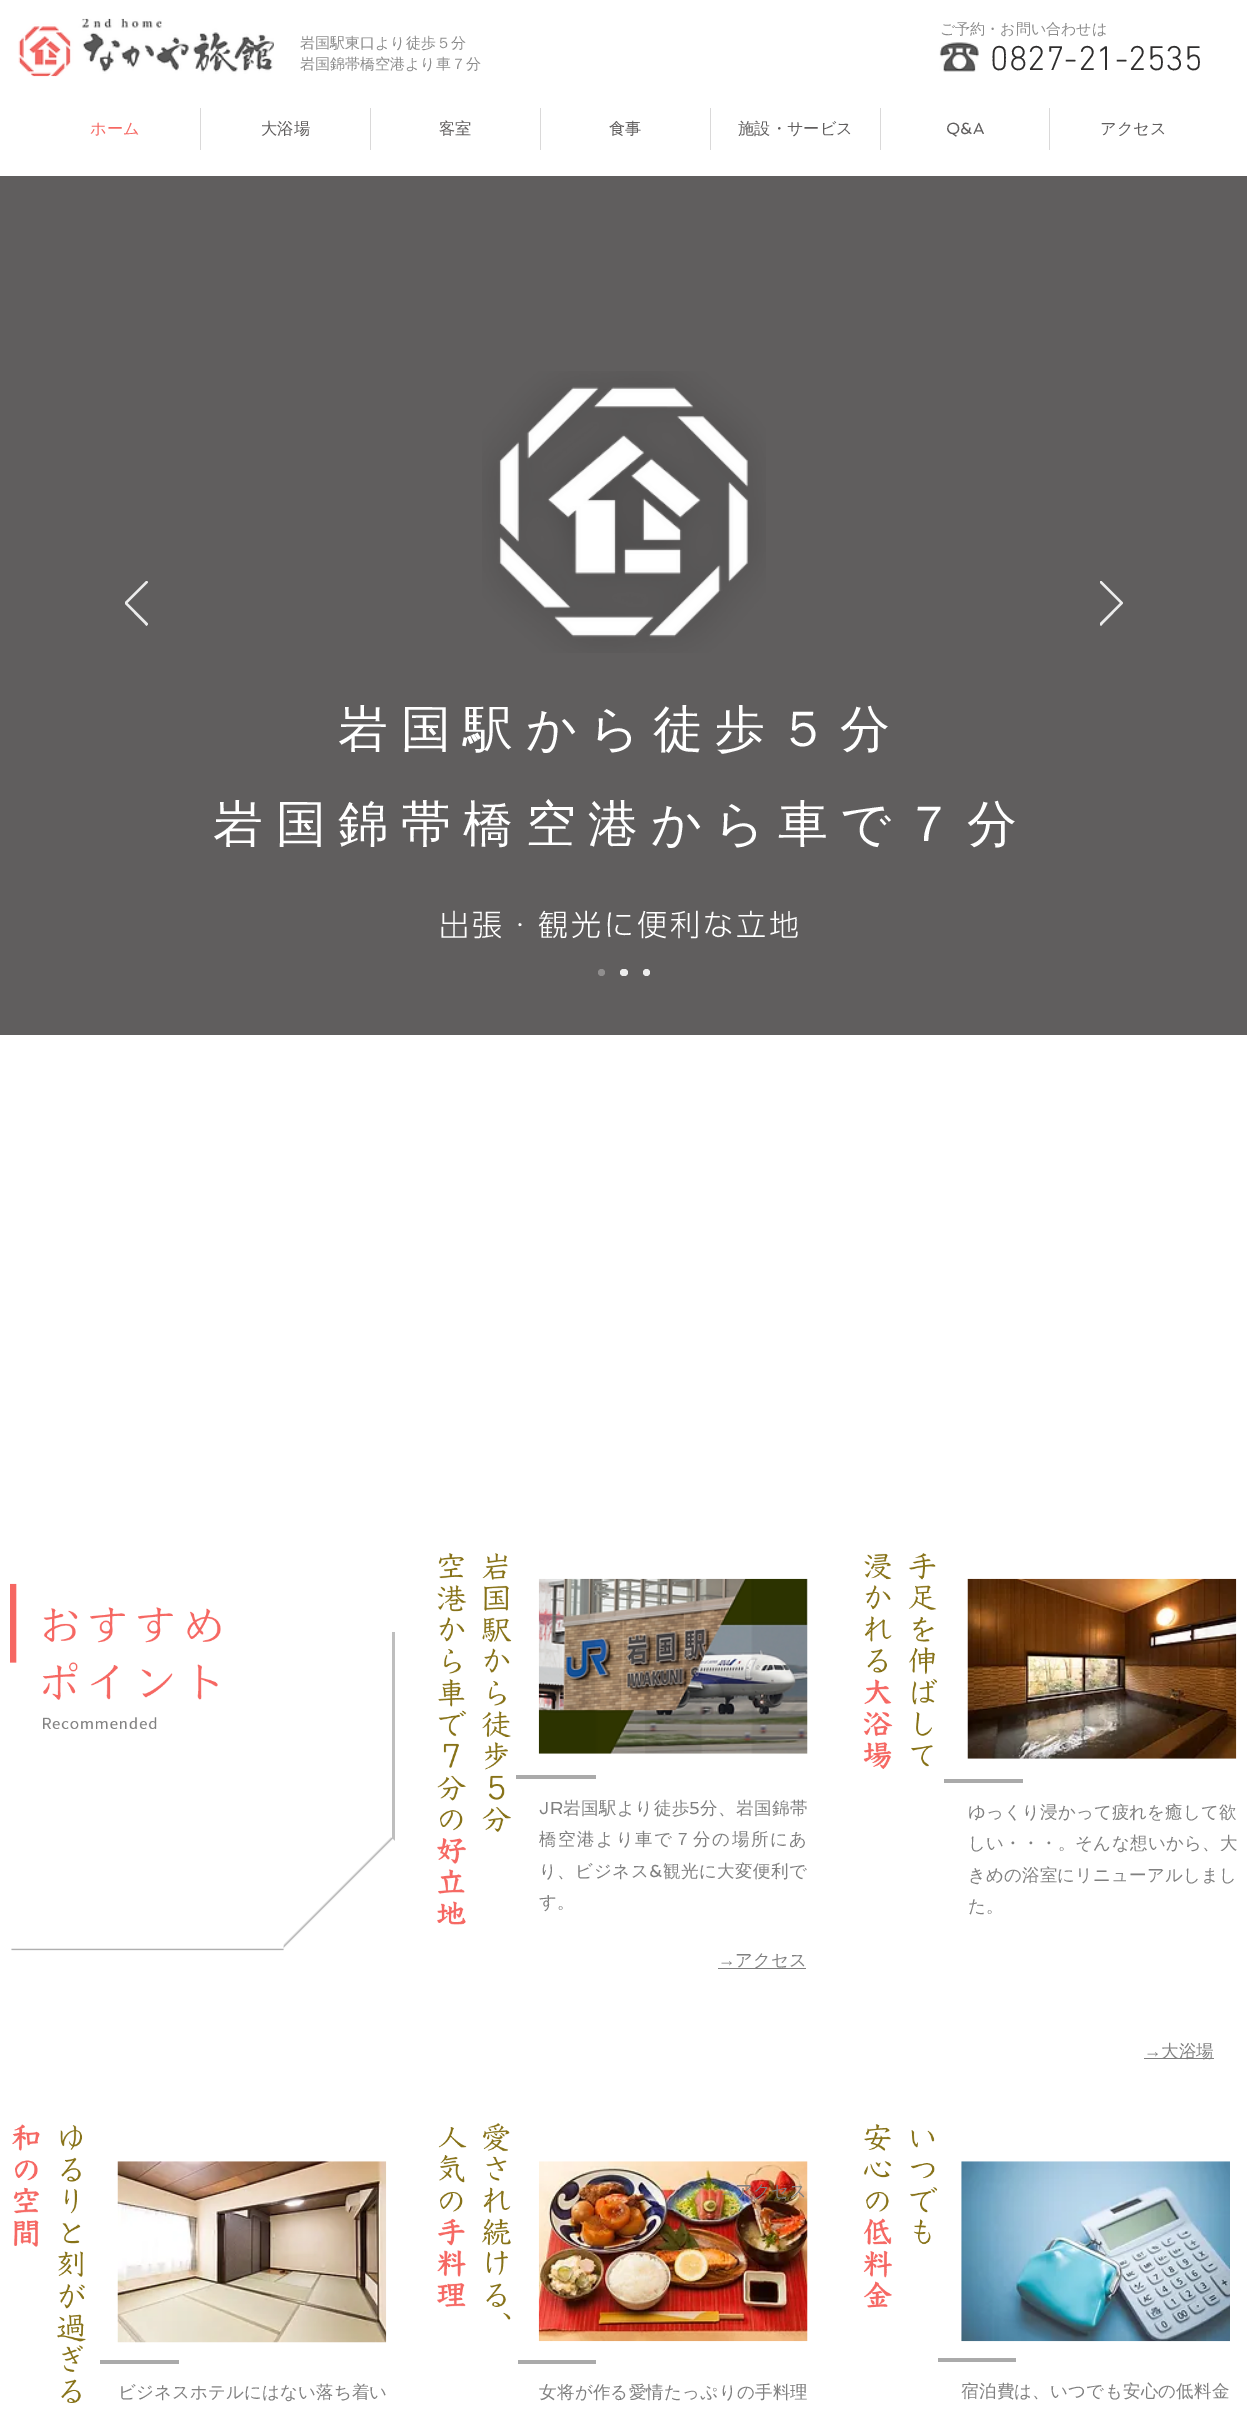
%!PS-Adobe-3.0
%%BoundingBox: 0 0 1247 2418
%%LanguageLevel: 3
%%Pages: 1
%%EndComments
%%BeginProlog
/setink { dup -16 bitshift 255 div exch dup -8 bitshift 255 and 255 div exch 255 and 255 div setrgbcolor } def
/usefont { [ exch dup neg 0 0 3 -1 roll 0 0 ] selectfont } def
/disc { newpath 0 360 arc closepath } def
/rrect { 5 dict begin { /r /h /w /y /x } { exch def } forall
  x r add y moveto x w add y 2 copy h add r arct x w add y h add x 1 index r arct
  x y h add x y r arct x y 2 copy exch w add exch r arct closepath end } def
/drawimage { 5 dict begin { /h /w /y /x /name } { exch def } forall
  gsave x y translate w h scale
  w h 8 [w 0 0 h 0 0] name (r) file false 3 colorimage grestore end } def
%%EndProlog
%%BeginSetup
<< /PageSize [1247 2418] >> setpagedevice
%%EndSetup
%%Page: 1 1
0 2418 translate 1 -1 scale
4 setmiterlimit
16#FFFFFF setink
0 0 1247 2418 rectfill
(img1.raw) 18 18 256 59 drawimage
/WenQuanYiZenHei-Medium 15 usefont
16#8C8C8C setink
[
    [(岩国駅東口より徒歩５分) 300 48]
    [(岩国錦帯橋空港より車７分) 300 69]
    [(ご予約・お問い合わせは) 940 34]
] { aload pop moveto show } forall
(img2.raw) 939 42 40 30 drawimage
/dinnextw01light-Light 35 usefont
16#2F2E2E setink
990 70 moveto (0827-21-2535) show
/WenQuanYiZenHei-Medium 16.25 usefont
16#F66762 setink
90 134 moveto (ホーム) show
16#DAD9D9 setink
200 108 1 42 rectfill
16#605E5E setink
261 134 moveto (大浴場) show
16#DAD9D9 setink
370 108 1 42 rectfill
16#605E5E setink
439 134 moveto (客室) show
16#DAD9D9 setink
540 108 1 42 rectfill
16#605E5E setink
609 134 moveto (食事) show
16#DAD9D9 setink
710 108 1 42 rectfill
16#605E5E setink
738 134 moveto (施設・サービス) show
16#DAD9D9 setink
880 108 1 42 rectfill
/Spinnaker-Regular 16.25 usefont
16#605E5E setink
946 134 moveto (Q&A) show
16#DAD9D9 setink
1049 108 1 42 rectfill
/WenQuanYiZenHei-Medium 16.25 usefont
16#605E5E setink
1100 134 moveto (アクセス) show
0 176 1247 859 rectfill
gsave
125 581 23 45 rectclip
16#ECECEC setink
1.1 setlinewidth
146.5 625 moveto 125 603 lineto 146.5 581.5 lineto 147.5 582 lineto 126.5 603 lineto 147.5 624 lineto closepath stroke
grestore
16#ECECEC setink
1101 625 moveto 1122 603 lineto 1101 581 lineto 1100 582 lineto 1121 603 lineto 1100 624 lineto closepath fill
gsave
1100 581 23 45 rectclip
1.1 setlinewidth
1101 625 moveto 1122.5 603 lineto 1101 581.5 lineto 1100 582 lineto 1121 603 lineto 1100 624 lineto closepath stroke
grestore
(img3.raw) 482 371 284 282 drawimage
/WenQuanYiZenHei-Medium 50 usefont
16#FFFFFF setink
338 746 moveto 12.5 0 (岩国駅から徒歩５分) ashow
213 841 moveto 12.5 0 (岩国錦帯橋空港から車で７分) ashow
/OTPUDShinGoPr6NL-Light 30 usefont
439 936 moveto 3 0 (出張・観光に便利な立地) ashow
16#908E8E setink
601.5 972.5 3.5 disc fill
16#ECECEC setink
620 969 8 7 3.5 rrect fill
646.5 972.5 3.5 disc fill
(img4.raw) 10 1583 211 146 drawimage
(img5.raw) 863 1553 75 216 drawimage
(img6.raw) 967 1578 270 181 drawimage
16#BEBEBE setink
392 1632 3 212 rectfill
(img8.raw) 283 1837 112 112 drawimage
(img7.raw) 11 1944 273 7 drawimage
16#AAAAAA setink
944 1779 79 4 rectfill
(img9.raw) 437 1553 75 372 drawimage
(img10.raw) 538 1578 270 176 drawimage
516 1775 80 4 rectfill
/Spinnaker-Regular 17.5 usefont
16#808080 setink
539 1814 moveto 0.5 0 (JR) ashow
/WenQuanYiZenHei-Medium 17.5 usefont
563 1814 moveto 0.5 0 (岩国駅より徒歩) ashow
/Spinnaker-Regular 17.5 usefont
689 1814 moveto 0.5 0 (5) ashow
/WenQuanYiZenHei-Medium 17.5 usefont
700 1814 moveto 0.5 0 (分、岩国錦帯) ashow
539 1845 moveto 1.6 0 (橋空港より車で７分の場所にあ) ashow
539 1877 moveto 0.5 0 (り、ビジネス) ashow
/Spinnaker-Regular 17.5 usefont
649 1877 moveto 0.5 0 (&) ashow
/WenQuanYiZenHei-Medium 17.5 usefont
663 1877 moveto 0.5 0 (観光に大変便利で) ashow
539 1908 moveto (す。) show
/LiberationSans-Regular 17.5 usefont
718 1966 moveto (→) show
718 1968 88 1 rectfill
/WenQuanYiZenHei-Medium 17.5 usefont
735 1966 moveto (アクセス) show
968 1818 moveto 0.1 0 (ゆっくり浸かって疲れを癒して欲) ashow
968 1849 moveto 0.25 0 (しい・・・。そんな想いから、大) ashow
968 1881 moveto 0.1 0 (きめの浴室にリニューアルしまし) ashow
968 1912 moveto (た。) show
/LiberationSans-Regular 17.5 usefont
1144 2057 moveto (→) show
1144 2058 70 1 rectfill
/WenQuanYiZenHei-Medium 17.5 usefont
1161 2057 moveto (大浴場) show
(img11.raw) 437 2123 74 197 drawimage
(img12.raw) 538 2161 270 181 drawimage
(img13.raw) 863 2124 75 184 drawimage
(img14.raw) 961 2161 269 181 drawimage
/LiberationSans-Regular 17.5 usefont
718 2197 moveto (→) show
/WenQuanYiZenHei-Medium 17.5 usefont
735 2197 moveto (アクセス) show
16#AAAAAA setink
518 2360 78 4 rectfill
938 2358 78 4 rectfill
(img15.raw) 12 2124 74 279 drawimage
(img16.raw) 117 2161 270 182 drawimage
100 2360 79 4 rectfill
16#808080 setink
118 2398 moveto 0.1 0 (ビジネスホテルにはない落ち着い) ashow
539 2398 moveto 0.25 0 (女将が作る愛情たっぷりの手料理) ashow
961 2397 moveto 0.25 0 (宿泊費は、いつでも安心の低料金) ashow
showpage
%%EOF
